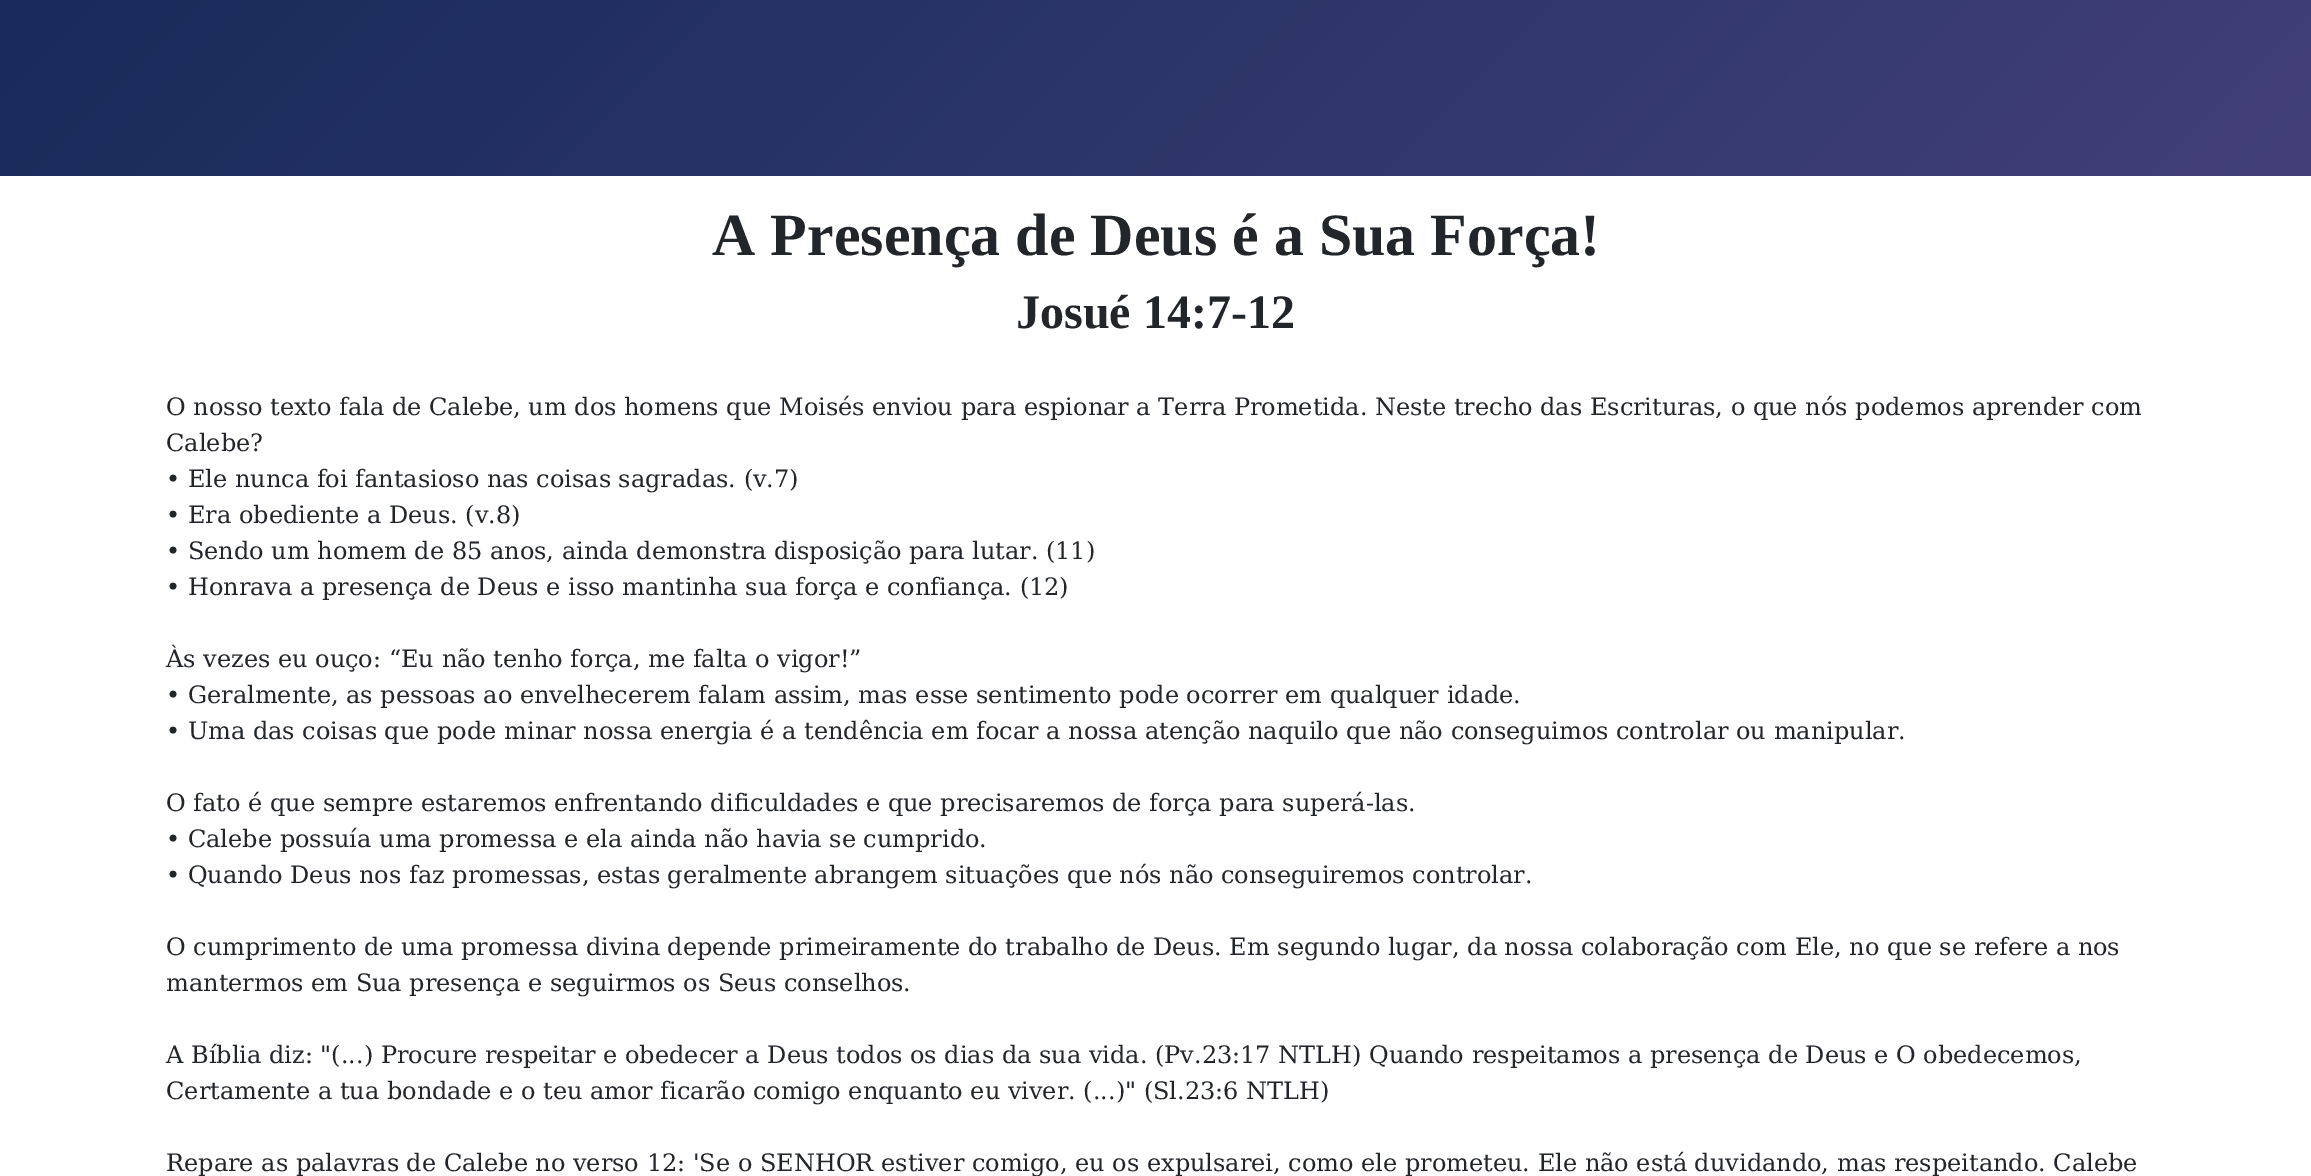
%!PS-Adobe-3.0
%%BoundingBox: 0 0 2311 1176
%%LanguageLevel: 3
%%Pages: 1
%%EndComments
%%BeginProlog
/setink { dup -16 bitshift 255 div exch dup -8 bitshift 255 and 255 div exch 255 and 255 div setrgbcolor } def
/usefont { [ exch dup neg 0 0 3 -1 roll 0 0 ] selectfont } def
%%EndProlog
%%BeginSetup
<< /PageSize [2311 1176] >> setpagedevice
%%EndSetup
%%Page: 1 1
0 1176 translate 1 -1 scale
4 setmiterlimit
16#FFFFFF setink
0 0 2311 1176 rectfill
gsave 0 0 moveto 2311 0 lineto 2311 176 lineto 0 176 lineto closepath clip newpath
<< /ShadingType 2 /ColorSpace /DeviceRGB /Coords [437 -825 1875 612] /Extend [true true] /Function << /FunctionType 2 /Domain [0 1] /C0 [0.067 0.157 0.333] /C1 [0.259 0.251 0.467] /N 1 >> >> shfill grestore
/LiberationSerif-Bold 60 usefont
16#22262A setink
712 255 moveto (A Presença de Deus é a Sua Força!) show
/LiberationSerif-Bold 48 usefont
1016 328 moveto (Josué 14:7-12) show
/DejaVuSerif-Regular 24 usefont
[
    [(O nosso texto fala de Calebe, um dos homens que Moisés enviou para espionar a Terra Prometida. Neste trecho das Escrituras, o que nós podemos aprender com) 166 415]
    [(Calebe?) 166 451]
    [(• Ele nunca foi fantasioso nas coisas sagradas. \(v.7\)) 166 487]
    [(• Era obediente a Deus. \(v.8\)) 166 523]
    [(• Sendo um homem de 85 anos, ainda demonstra disposição para lutar. \(11\)) 166 559]
    [(• Honrava a presença de Deus e isso mantinha sua força e confiança. \(12\)) 166 595]
    [(Às vezes eu ouço: “Eu não tenho força, me falta o vigor!”) 166 667]
    [(• Geralmente, as pessoas ao envelhecerem falam assim, mas esse sentimento pode ocorrer em qualquer idade.) 166 703]
    [(• Uma das coisas que pode minar nossa energia é a tendência em focar a nossa atenção naquilo que não conseguimos controlar ou manipular.) 166 739]
    [(O fato é que sempre estaremos enfrentando dificuldades e que precisaremos de força para superá-las.) 166 811]
    [(• Calebe possuía uma promessa e ela ainda não havia se cumprido.) 166 847]
    [(• Quando Deus nos faz promessas, estas geralmente abrangem situações que nós não conseguiremos controlar.) 166 883]
    [(O cumprimento de uma promessa divina depende primeiramente do trabalho de Deus. Em segundo lugar, da nossa colaboração com Ele, no que se refere a nos) 166 955]
    [(mantermos em Sua presença e seguirmos os Seus conselhos.) 166 991]
    [(A Bíblia diz: "\(...\) Procure respeitar e obedecer a Deus todos os dias da sua vida. \(Pv.23:17 NTLH\) Quando respeitamos a presença de Deus e O obedecemos,) 166 1063]
    [(Certamente a tua bondade e o teu amor ficarão comigo enquanto eu viver. \(...\)" \(Sl.23:6 NTLH\)) 166 1099]
    [(Repare as palavras de Calebe no verso 12: 'Se o SENHOR estiver comigo, eu os expulsarei, como ele prometeu. Ele não está duvidando, mas respeitando. Calebe) 166 1171]
] { aload pop moveto show } forall
showpage
%%EOF
